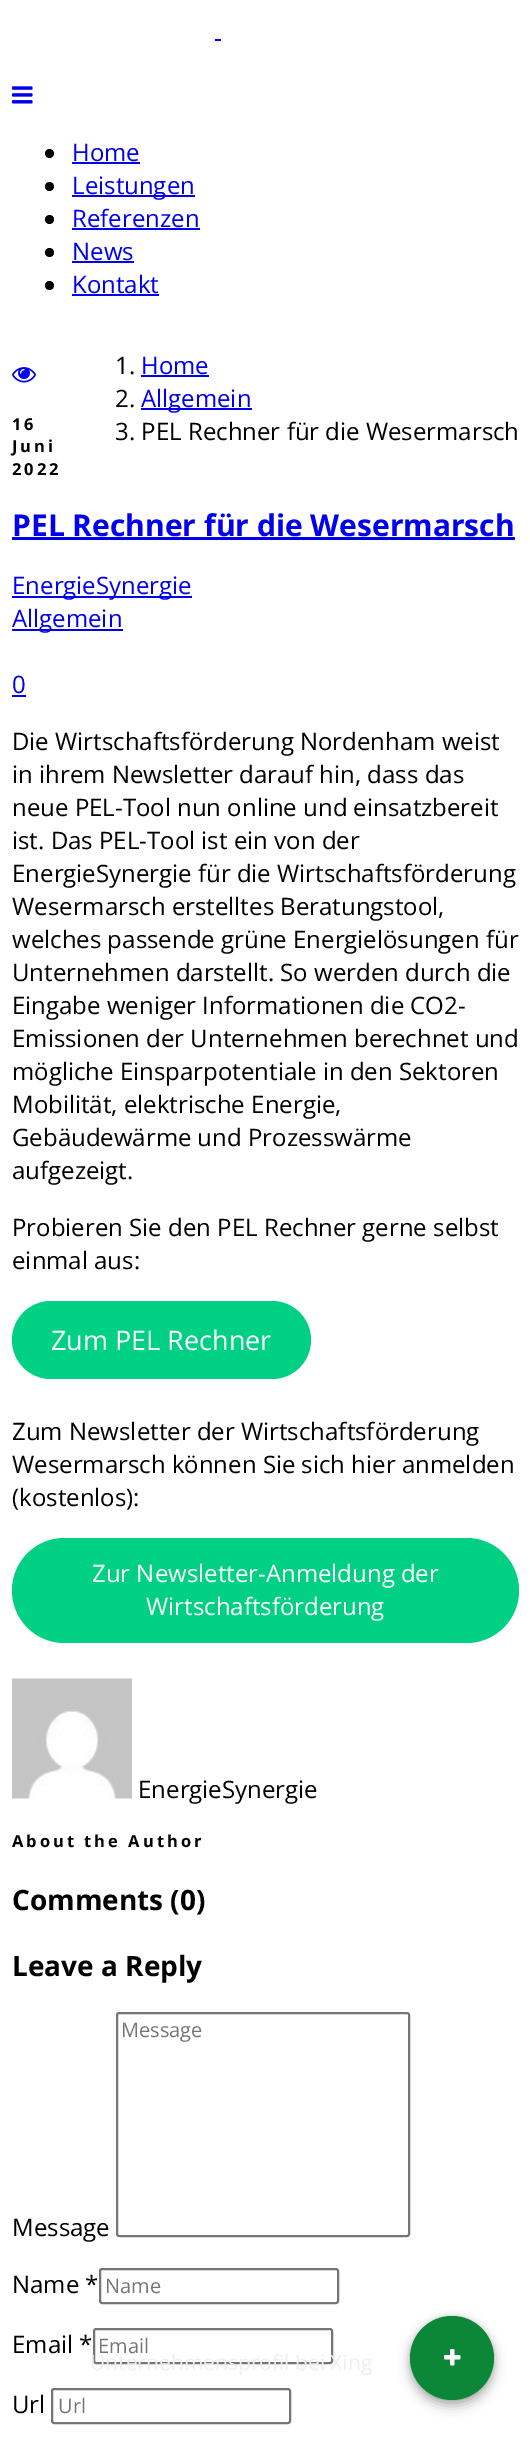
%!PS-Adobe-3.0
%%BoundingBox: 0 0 530 2445
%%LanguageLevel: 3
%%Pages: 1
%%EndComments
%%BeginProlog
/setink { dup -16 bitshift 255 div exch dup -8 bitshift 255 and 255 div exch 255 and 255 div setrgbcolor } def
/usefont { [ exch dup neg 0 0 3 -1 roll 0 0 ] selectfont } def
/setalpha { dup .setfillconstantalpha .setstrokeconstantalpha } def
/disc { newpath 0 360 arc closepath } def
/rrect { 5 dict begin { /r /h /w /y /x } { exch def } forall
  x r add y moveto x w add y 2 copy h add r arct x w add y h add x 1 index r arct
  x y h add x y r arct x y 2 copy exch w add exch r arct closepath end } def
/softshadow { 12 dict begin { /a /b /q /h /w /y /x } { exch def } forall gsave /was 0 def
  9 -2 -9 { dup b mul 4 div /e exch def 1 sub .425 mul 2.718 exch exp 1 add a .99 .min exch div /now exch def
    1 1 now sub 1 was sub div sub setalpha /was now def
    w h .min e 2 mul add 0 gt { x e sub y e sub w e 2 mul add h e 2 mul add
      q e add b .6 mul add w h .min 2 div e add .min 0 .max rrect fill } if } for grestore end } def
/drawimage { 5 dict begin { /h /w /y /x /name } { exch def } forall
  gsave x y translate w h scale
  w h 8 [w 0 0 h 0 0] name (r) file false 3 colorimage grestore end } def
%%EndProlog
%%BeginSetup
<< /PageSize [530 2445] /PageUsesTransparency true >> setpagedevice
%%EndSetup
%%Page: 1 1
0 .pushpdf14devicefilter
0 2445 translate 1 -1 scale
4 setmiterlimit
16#FFFFFF setink
0 0 530 2445 rectfill
16#0000EE setink
215 39 6 2 rectfill
(img1.raw) 12 86 21 18 drawimage
16#000000 setink
49.5 153.5 4.5 disc fill
/OpenSans-Regular 24 usefont
16#0000EE setink
72 161 moveto (Home) show
72 162 68 2 rectfill
16#000000 setink
49.5 186.5 4.5 disc fill
16#0000EE setink
72 195 123 2 rectfill
72 194 moveto (Leistungen) show
16#000000 setink
49.5 219.5 4.5 disc fill
16#0000EE setink
72 227 moveto (Referenzen) show
72 228 128 2 rectfill
16#000000 setink
49.5 252.5 4.5 disc fill
16#0000EE setink
72 260 moveto (News) show
72 261 62 2 rectfill
16#000000 setink
49.5 285.5 4.5 disc fill
16#0000EE setink
72 293 moveto (Kontakt) show
72 294 87 2 rectfill
16#000000 setink
115 374 moveto (1.) show
16#0000EE setink
141 374 moveto (Home) show
141 375 68 2 rectfill
16#000000 setink
115 407 moveto (2.) show
16#0000EE setink
141 408 111 2 rectfill
141 407 moveto (Allgemein) show
16#000000 setink
115 440 moveto (3. PEL Rechner für die Wesermarsch) show
(img2.raw) 12 367 24 16 drawimage
/OpenSans-Bold 16.5 usefont
12 430 moveto 3 0 (16) ashow
12 452 moveto 3 0 (Juni) ashow
12 475 moveto 3 0 (2022) ashow
/OpenSans-Bold 30 usefont
16#0000EE setink
12 536 moveto (PEL Rechner für die Wesermarsch) show
12 537 503 3 rectfill
12 596 180 2 rectfill
/OpenSans-Regular 24 usefont
12 594 moveto (EnergieSynergie) show
12 629 111 2 rectfill
12 627 moveto (Allgemein) show
12 693 moveto (0) show
12 695 14 2 rectfill
16#000000 setink
[
    [(Die Wirtschaftsförderung Nordenham weist) 12 750]
    [(in ihrem Newsletter darauf hin, dass das) 12 783]
    [(neue PEL-Tool nun online und einsatzbereit) 12 816]
    [(ist. Das PEL-Tool ist ein von der) 12 849]
    [(EnergieSynergie für die Wirtschaftsförderung) 12 882]
    [(Wesermarsch erstelltes Beratungstool,) 12 915]
    [(welches passende grüne Energielösungen für) 12 948]
    [(Unternehmen darstellt. So werden durch die) 12 981]
    [(Eingabe weniger Informationen die CO2-) 12 1014]
    [(Emissionen der Unternehmen berechnet und) 12 1047]
    [(mögliche Einsparpotentiale in den Sektoren) 12 1080]
    [(Mobilität, elektrische Energie,) 12 1113]
    [(Gebäudewärme und Prozesswärme) 12 1146]
    [(aufgezeigt.) 12 1179]
    [(Probieren Sie den PEL Rechner gerne selbst) 12 1236]
    [(einmal aus:) 12 1269]
] { aload pop moveto show } forall
16#00D084 setink
12 1301 299 78 39 rrect fill
/OpenSans-Regular 27 usefont
16#FFFFFF setink
51 1350 moveto (Zum PEL Rechner) show
/OpenSans-Regular 24 usefont
16#000000 setink
[
    [(Zum Newsletter der Wirtschaftsförderung) 12 1440]
    [(Wesermarsch können Sie sich hier anmelden) 12 1473]
    [(\(kostenlos\):) 12 1506]
] { aload pop moveto show } forall
16#00D084 setink
12 1538 507 105 52.5 rrect fill
16#FFFFFF setink
92 1582 moveto (Zur Newsletter-Anmeldung der) show
146 1615 moveto (Wirtschaftsförderung) show
(img3.raw) 12 1678 120 121 drawimage
16#000000 setink
138 1798 moveto (EnergieSynergie) show
/OpenSans-Bold 16.5 usefont
12 1847 moveto 3 0 (About the Author) ashow
/OpenSans-Bold 28 usefont
12 1910 moveto (Comments \(0\)) show
12 1976 moveto (Leave a Reply) show
16#767676 setink
2 setlinewidth
117 2013 292 223 2 rrect stroke
/OpenSans-Regular 20 usefont
16#757575 setink
121 2037 moveto (Message) show
/OpenSans-Regular 24 usefont
16#000000 setink
12 2236 moveto (Message) show
12 2293 moveto (Name *) show
16#767676 setink
100 2269 238 34 2 rrect stroke
/OpenSans-Regular 20 usefont
16#757575 setink
105 2293 moveto (Name) show
/OpenSans-Regular 24 usefont
16#000000 setink
12 2353 moveto (Email *) show
16#767676 setink
94 2329 238 34 2 rrect stroke
/OpenSans-Regular 20 usefont
16#757575 setink
98 2353 moveto (Email) show
/OpenSans-Regular 24 usefont
16#000000 setink
12 2413 moveto (Url) show
16#767676 setink
52 2389 238 34 2 rrect stroke
/OpenSans-Regular 20 usefont
16#757575 setink
58 2413 moveto (Url) show
/OpenSans-Regular 21 usefont
16#EEEEEE setink
90 2370 moveto (Unternehmensprofil bei Xing) show
16#000000 setink
410 2322 84 84 42 6 0.28 softshadow
410 2316 84 84 42 3 0.14 softshadow
16#0B8737 setink
452 2358 42 disc fill
(img4.raw) 444 2349 17 17 drawimage
.poppdf14devicefilter showpage
%%EOF
